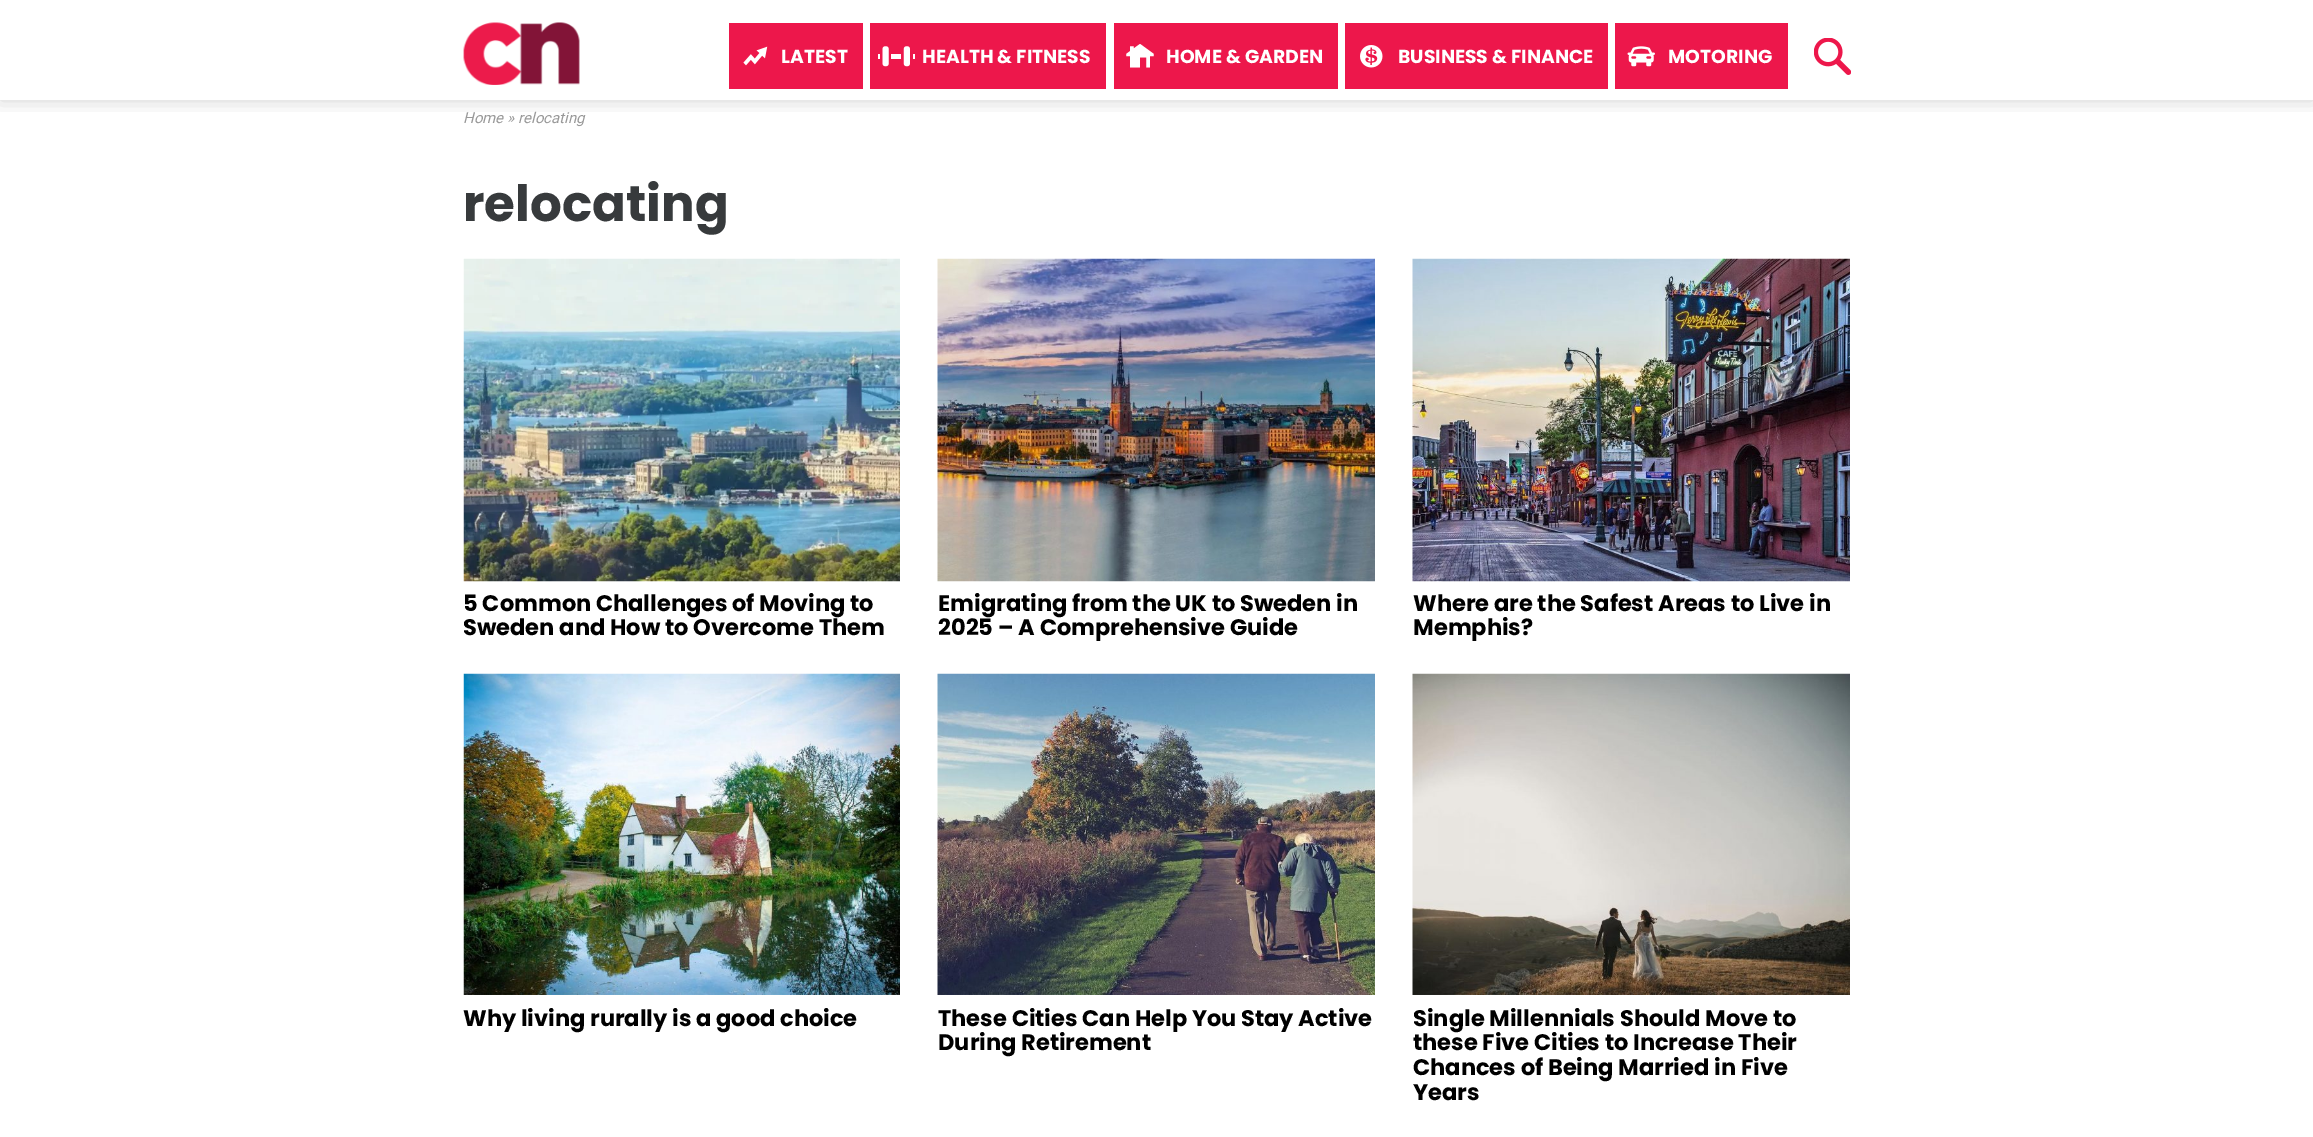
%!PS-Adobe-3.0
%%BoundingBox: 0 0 2313 1137
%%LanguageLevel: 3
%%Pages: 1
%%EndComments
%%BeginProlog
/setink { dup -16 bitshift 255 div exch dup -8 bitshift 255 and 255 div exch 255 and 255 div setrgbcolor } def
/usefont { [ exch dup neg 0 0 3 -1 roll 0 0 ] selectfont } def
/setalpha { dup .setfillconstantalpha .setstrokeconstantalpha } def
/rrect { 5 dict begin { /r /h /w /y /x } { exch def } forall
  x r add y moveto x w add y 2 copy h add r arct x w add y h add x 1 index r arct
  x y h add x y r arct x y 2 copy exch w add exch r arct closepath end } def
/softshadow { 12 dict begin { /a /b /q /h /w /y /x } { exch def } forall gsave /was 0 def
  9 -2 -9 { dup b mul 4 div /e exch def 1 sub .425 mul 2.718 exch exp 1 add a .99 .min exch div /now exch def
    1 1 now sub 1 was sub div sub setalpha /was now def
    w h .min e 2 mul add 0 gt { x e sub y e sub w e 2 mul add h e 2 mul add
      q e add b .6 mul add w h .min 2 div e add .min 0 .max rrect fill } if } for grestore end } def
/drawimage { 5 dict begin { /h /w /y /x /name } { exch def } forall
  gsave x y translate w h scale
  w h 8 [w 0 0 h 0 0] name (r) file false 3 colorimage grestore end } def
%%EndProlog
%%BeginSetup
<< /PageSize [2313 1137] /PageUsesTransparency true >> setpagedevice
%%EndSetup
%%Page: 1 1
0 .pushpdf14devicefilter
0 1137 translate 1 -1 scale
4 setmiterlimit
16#FFFFFF setink
0 0 2313 1137 rectfill
gsave
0 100 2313 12 rectclip
16#000000 setink
0 0 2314 100 0 10 0.18 softshadow
grestore
(img1.raw) 463 22 117 63 drawimage
16#ED174B setink
729 23 134 66 rectfill
(img2.raw) 743 46 25 20 drawimage
/Poppins-Bold 18.75 usefont
16#FFFFFF setink
781 63 moveto (LATEST) show
16#ED174B setink
870 23 236 66 rectfill
(img3.raw) 878 46 37 21 drawimage
16#FFFFFF setink
922 63 moveto (HEALTH & FITNESS) show
16#ED174B setink
1114 23 224 66 rectfill
(img4.raw) 1126 44 28 24 drawimage
16#FFFFFF setink
1166 63 moveto (HOME & GARDEN) show
16#ED174B setink
1345 23 263 66 rectfill
(img5.raw) 1360 45 23 23 drawimage
16#FFFFFF setink
1398 63 moveto (BUSINESS & FINANCE) show
16#ED174B setink
1615 23 173 66 rectfill
(img6.raw) 1627 46 28 21 drawimage
16#FFFFFF setink
1668 63 moveto (MOTORING) show
(img7.raw) 1814 38 37 37 drawimage
/Roboto-Italic 15 usefont
16#999999 setink
463 123 moveto (Home » relocating) show
/Poppins-Bold 50 usefont
16#373A3C setink
463 221 moveto (relocating) show
(img8.raw) 463 258 437 324 drawimage
/Poppins-Bold 22.5 usefont
16#000000 setink
463 611 moveto (5 Common Challenges of Moving to) show
463 635 moveto (Sweden and How to Overcome Them) show
(img9.raw) 937 258 438 324 drawimage
938 611 moveto (Emigrating from the UK to Sweden in) show
938 635 moveto (2025 – A Comprehensive Guide) show
(img10.raw) 1412 258 438 324 drawimage
1413 611 moveto (Where are the Safest Areas to Live in) show
1413 635 moveto (Memphis?) show
(img11.raw) 463 673 437 322 drawimage
463 1026 moveto (Why living rurally is a good choice) show
(img12.raw) 937 673 438 322 drawimage
938 1026 moveto (These Cities Can Help You Stay Active) show
938 1050 moveto (During Retirement) show
(img13.raw) 1412 673 438 322 drawimage
[
    [(Single Millennials Should Move to) 1413 1026]
    [(these Five Cities to Increase Their) 1413 1050]
    [(Chances of Being Married in Five) 1413 1075]
    [(Years) 1413 1100]
] { aload pop moveto show } forall
.poppdf14devicefilter showpage
%%EOF
